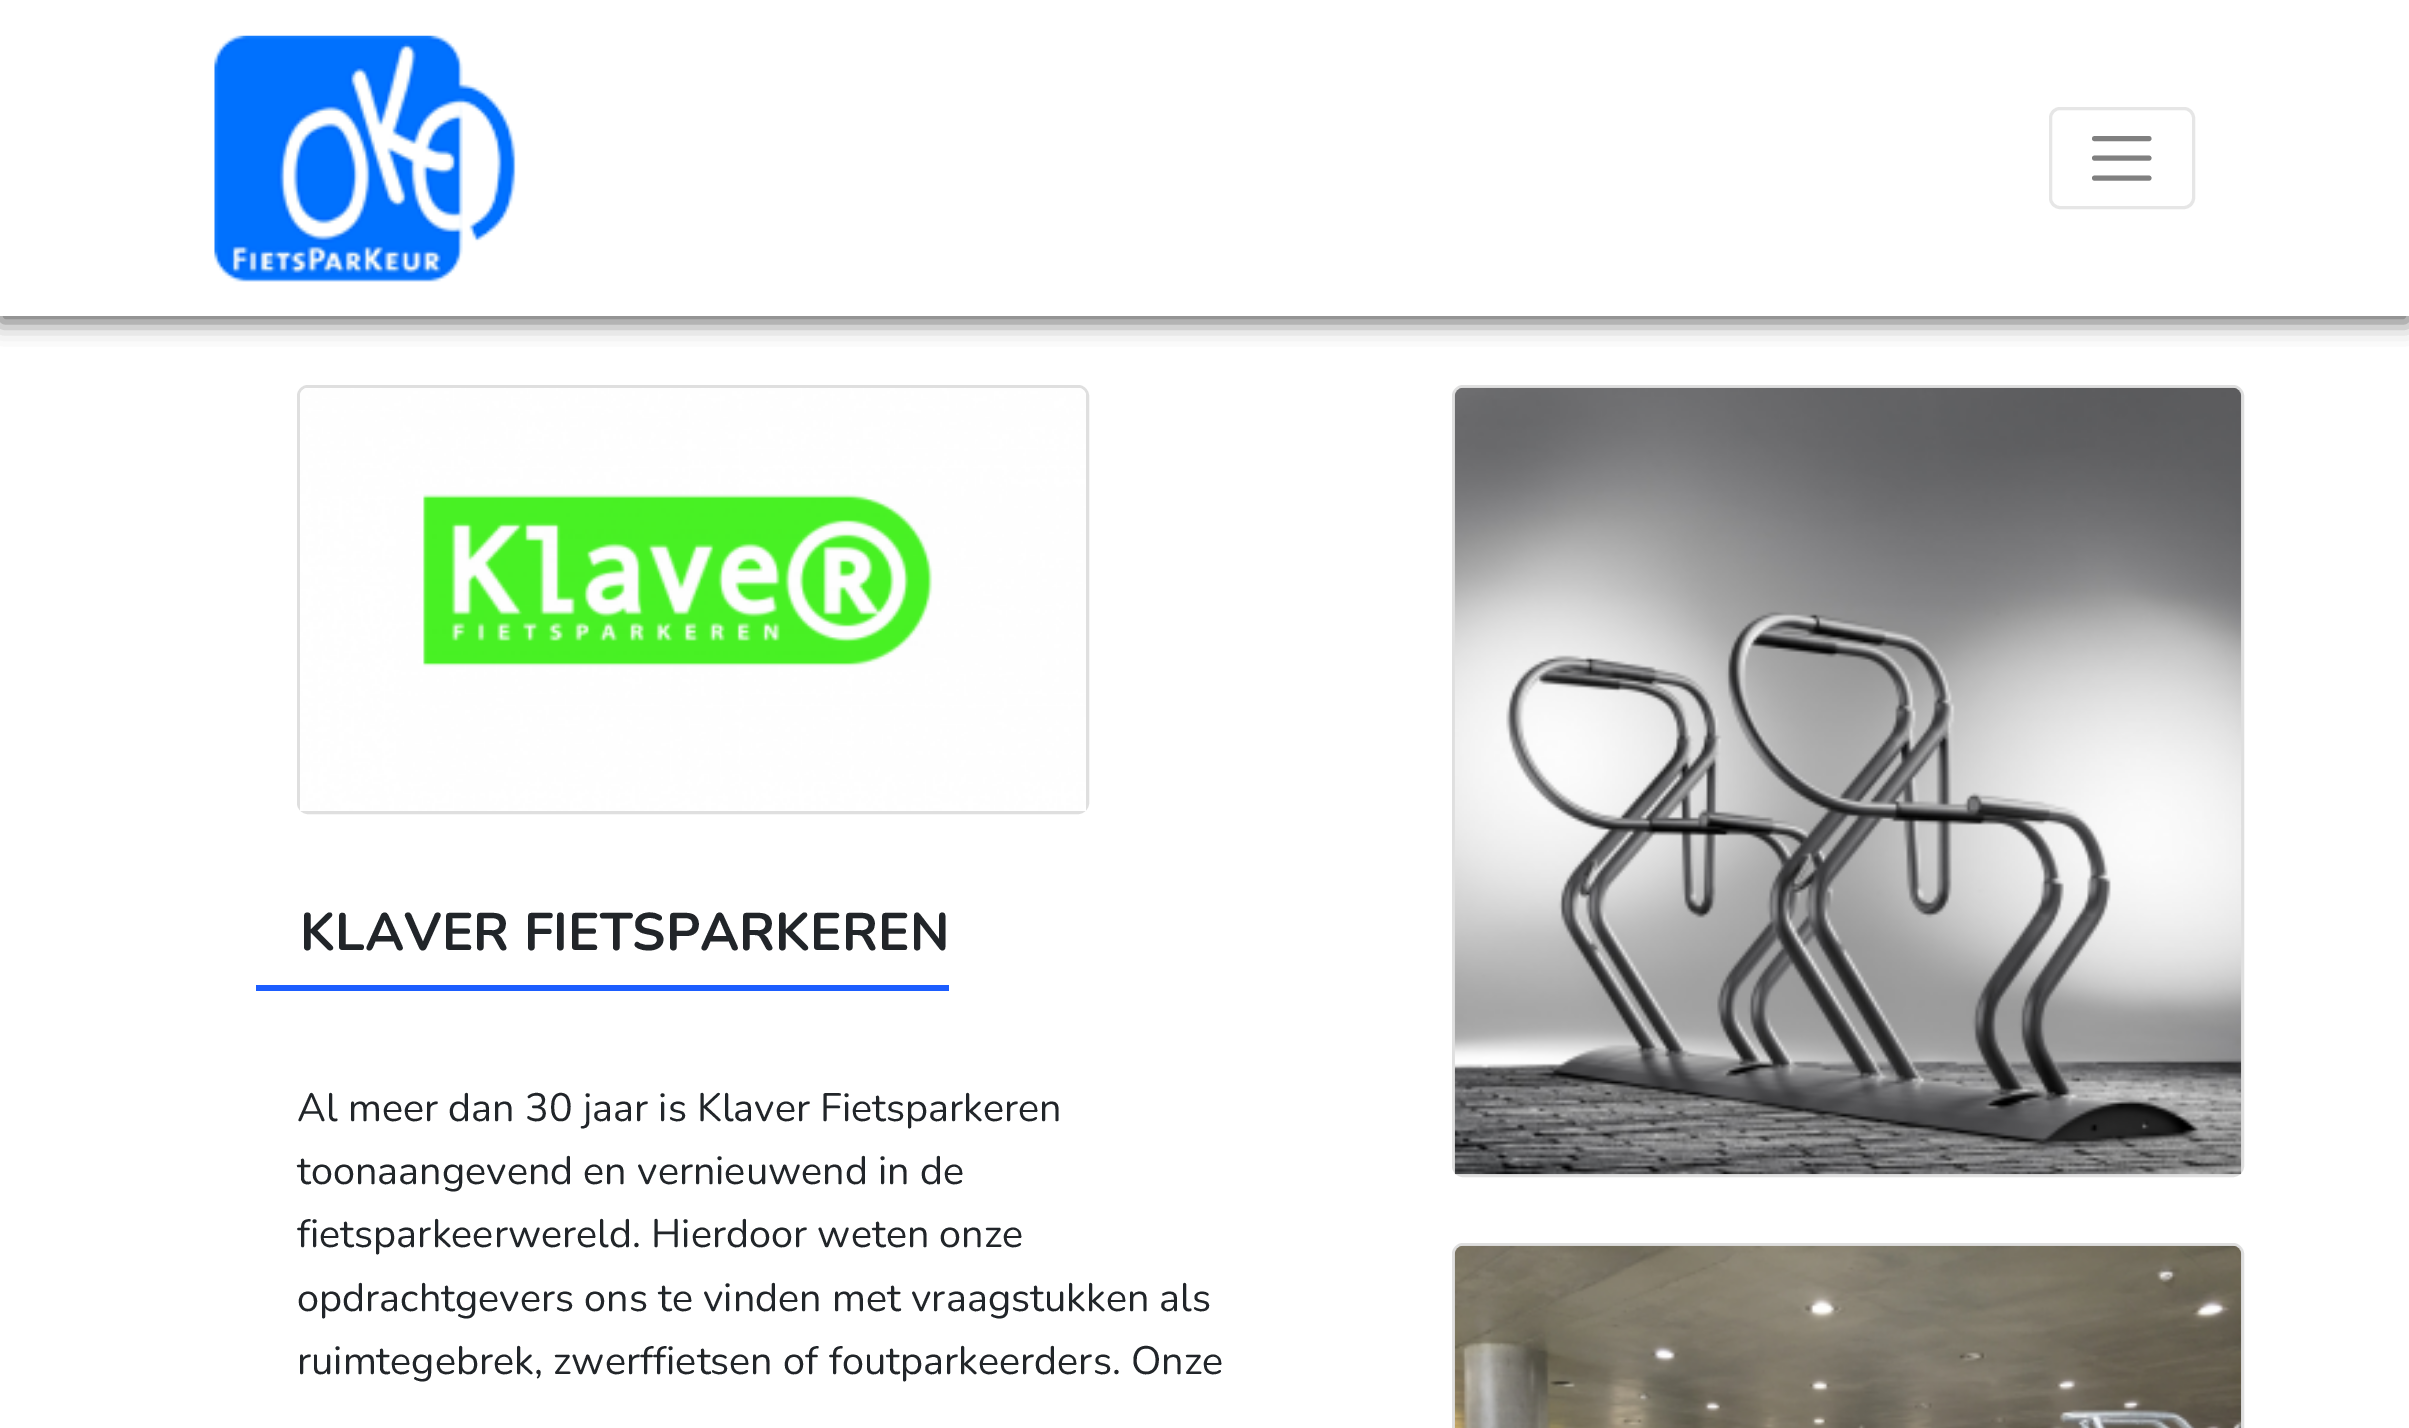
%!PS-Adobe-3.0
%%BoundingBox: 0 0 2409 1428
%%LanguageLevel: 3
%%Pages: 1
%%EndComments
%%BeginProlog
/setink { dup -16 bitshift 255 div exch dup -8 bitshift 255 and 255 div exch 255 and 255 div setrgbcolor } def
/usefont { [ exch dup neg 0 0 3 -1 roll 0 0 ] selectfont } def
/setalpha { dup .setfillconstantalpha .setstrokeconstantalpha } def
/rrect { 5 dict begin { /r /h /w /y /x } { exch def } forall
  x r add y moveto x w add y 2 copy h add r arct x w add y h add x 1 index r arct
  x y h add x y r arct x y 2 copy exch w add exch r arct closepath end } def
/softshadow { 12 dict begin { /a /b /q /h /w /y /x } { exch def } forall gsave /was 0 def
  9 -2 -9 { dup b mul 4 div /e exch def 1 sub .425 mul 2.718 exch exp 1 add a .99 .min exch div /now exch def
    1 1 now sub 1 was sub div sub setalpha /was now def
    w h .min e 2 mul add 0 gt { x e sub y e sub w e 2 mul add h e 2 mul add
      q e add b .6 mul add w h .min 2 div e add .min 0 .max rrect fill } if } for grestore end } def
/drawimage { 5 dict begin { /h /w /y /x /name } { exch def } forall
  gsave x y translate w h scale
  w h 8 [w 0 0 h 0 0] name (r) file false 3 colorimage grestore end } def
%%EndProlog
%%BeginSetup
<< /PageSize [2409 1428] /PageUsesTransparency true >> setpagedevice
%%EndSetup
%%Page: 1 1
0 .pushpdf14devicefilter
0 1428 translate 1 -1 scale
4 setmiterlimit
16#FFFFFF setink
0 0 2409 1428 rectfill
16#656565 setink
0 6 2409 316 0 11 1 softshadow
16#FFFFFF setink
0 0 2409 316 rectfill
(img1.raw) 214 35 302 247 drawimage
16#E6E6E6 setink
3 setlinewidth
2050.5 108.5 143 99 9.5 rrect stroke
16#808080 setink
5 setlinewidth
1 setlinecap
2094.5 138.5 moveto 2149 138.5 lineto 2094.5 158 moveto 2149 158 lineto 2094.5 178 moveto 2149 178 lineto stroke
16#DFDFDF setink
3 setlinewidth
0 setlinecap
298.5 386.5 789 426 9.5 rrect stroke
(img2.raw) 300 388 786 423 drawimage
/Nunito-Bold 52.75 usefont
16#212529 setink
300 950 moveto (KLAVER FIETSPARKEREN) show
16#1C5DFF setink
256 985 693 6 rectfill
/Nunito-Regular 39.6 usefont
16#212529 setink
[
    [(Al meer dan 30 jaar is Klaver Fietsparkeren) 297 1121]
    [(toonaangevend en vernieuwend in de) 297 1184]
    [(fietsparkeerwereld. Hierdoor weten onze) 297 1247]
    [(opdrachtgevers ons te vinden met vraagstukken als) 297 1311]
    [(ruimtegebrek, zwerffietsen of foutparkeerders. Onze) 297 1374]
] { aload pop moveto show } forall
16#DFDFDF setink
1453.5 386.5 789 789 9.5 rrect stroke
(img3.raw) 1454 387 788 788 drawimage
1453.5 1244.5 789 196 9.5 rrect stroke
(img4.raw) 1454 1245 788 183 drawimage
.poppdf14devicefilter showpage
%%EOF
